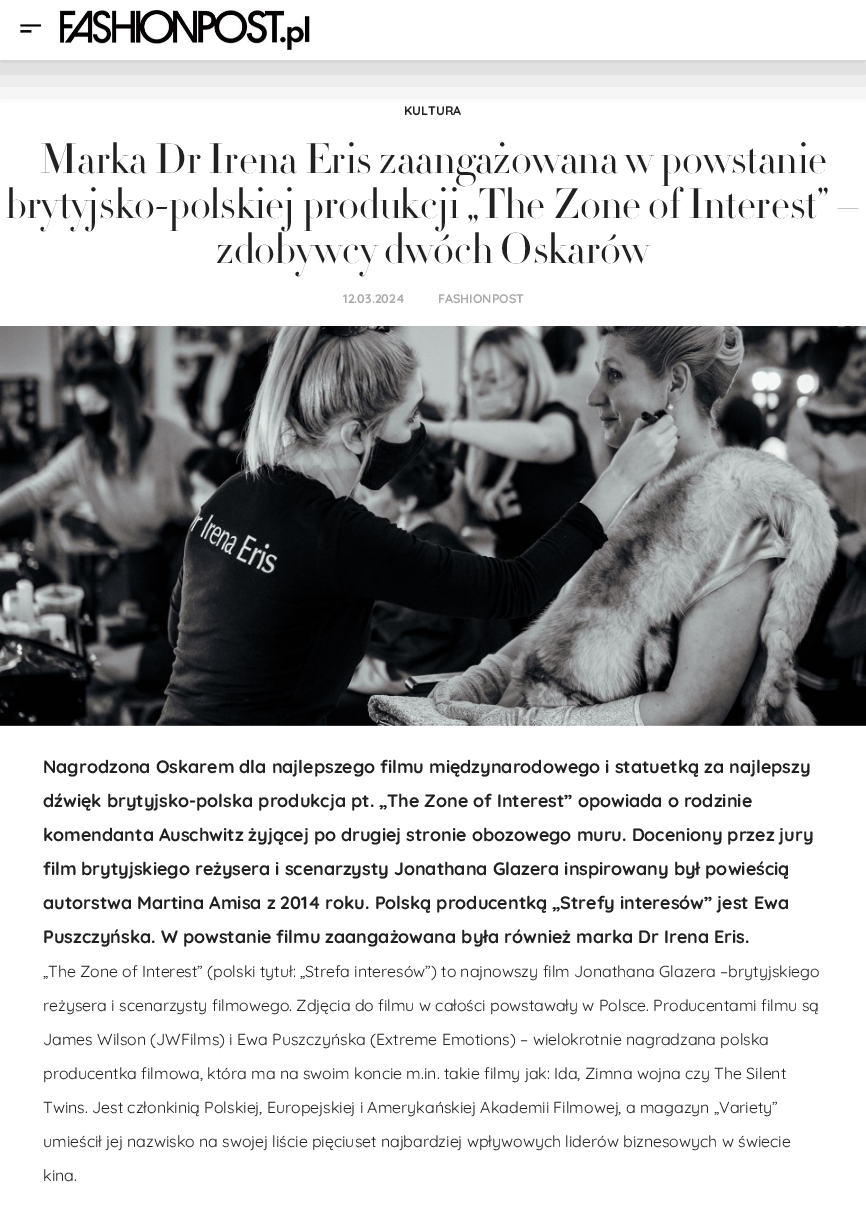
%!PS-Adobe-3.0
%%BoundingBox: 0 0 866 1208
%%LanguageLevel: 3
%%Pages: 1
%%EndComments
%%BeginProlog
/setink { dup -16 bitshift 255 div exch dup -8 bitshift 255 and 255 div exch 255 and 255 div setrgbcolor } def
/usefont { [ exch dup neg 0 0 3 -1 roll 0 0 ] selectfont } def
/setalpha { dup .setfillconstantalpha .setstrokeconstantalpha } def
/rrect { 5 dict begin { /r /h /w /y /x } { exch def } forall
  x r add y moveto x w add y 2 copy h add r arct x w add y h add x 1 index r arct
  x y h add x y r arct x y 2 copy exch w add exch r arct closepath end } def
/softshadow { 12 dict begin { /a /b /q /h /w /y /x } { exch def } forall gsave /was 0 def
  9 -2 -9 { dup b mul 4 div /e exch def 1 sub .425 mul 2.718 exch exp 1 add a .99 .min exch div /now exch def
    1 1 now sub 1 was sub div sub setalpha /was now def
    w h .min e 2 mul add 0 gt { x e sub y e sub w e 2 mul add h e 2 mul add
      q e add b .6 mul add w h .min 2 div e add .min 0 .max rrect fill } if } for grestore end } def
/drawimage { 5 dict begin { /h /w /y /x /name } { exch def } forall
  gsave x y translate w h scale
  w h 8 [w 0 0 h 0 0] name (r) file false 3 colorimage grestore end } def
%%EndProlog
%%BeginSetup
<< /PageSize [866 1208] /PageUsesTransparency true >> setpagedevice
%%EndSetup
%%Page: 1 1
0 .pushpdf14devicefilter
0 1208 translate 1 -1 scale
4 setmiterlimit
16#FFFFFF setink
0 0 866 1208 rectfill
gsave
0 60 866 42 rectclip
16#000000 setink
-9 -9 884 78 0 24 0.23 softshadow
grestore
(img1.raw) 20 24 21 9 drawimage
(img2.raw) 60 10 250 40 drawimage
/Quicksand-Bold 12.5 usefont
16#212121 setink
404 115 moveto (KULTURA) show
/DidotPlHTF-Light 42 usefont
[
    [(Marka Dr Irena Eris zaangażowana w powstanie) 40 173]
    [(brytyjsko-polskiej produkcji „The Zone of Interest” –) 6 218]
    [(zdobywcy dwóch Oskarów) 216 263]
] { aload pop moveto show } forall
/Quicksand-Bold 12.5 usefont
16#ABA9AA setink
343 303 moveto (12.03.2024) show
438 303 moveto (FASHIONPOST) show
(img3.raw) 0 326 866 400 drawimage
/Quicksand-Bold 18 usefont
16#212121 setink
[
    [(Nagrodzona Oskarem dla najlepszego filmu międzynarodowego i statuetką za najlepszy) 43 773]
    [(dźwięk brytyjsko-polska produkcja pt. „The Zone of Interest” opowiada o rodzinie) 43 807]
    [(komendanta Auschwitz żyjącej po drugiej stronie obozowego muru. Doceniony przez jury) 43 841]
    [(film brytyjskiego reżysera i scenarzysty Jonathana Glazera inspirowany był powieścią) 43 875]
    [(autorstwa Martina Amisa z 2014 roku. Polską producentką „Strefy interesów” jest Ewa) 43 909]
    [(Puszczyńska. W powstanie filmu zaangażowana była również marka Dr Irena Eris.) 43 943]
] { aload pop moveto show } forall
/Quicksand-Regular 16 usefont
[
    [(„The Zone of Interest” \(polski tytuł: „Strefa interesów”\) to najnowszy film Jonathana Glazera –brytyjskiego) 43 977]
    [(reżysera i scenarzysty filmowego. Zdjęcia do filmu w całości powstawały w Polsce. Producentami filmu są) 43 1011]
    [(James Wilson \(JWFilms\) i Ewa Puszczyńska \(Extreme Emotions\) – wielokrotnie nagradzana polska) 43 1045]
    [(producentka filmowa, która ma na swoim koncie m.in. takie filmy jak: Ida, Zimna wojna czy The Silent) 43 1079]
    [(Twins. Jest członkinią Polskiej, Europejskiej i Amerykańskiej Akademii Filmowej, a magazyn „Variety”) 43 1113]
    [(umieścił jej nazwisko na swojej liście pięciuset najbardziej wpływowych liderów biznesowych w świecie) 43 1147]
    [(kina.) 43 1181]
] { aload pop moveto show } forall
.poppdf14devicefilter showpage
%%EOF
